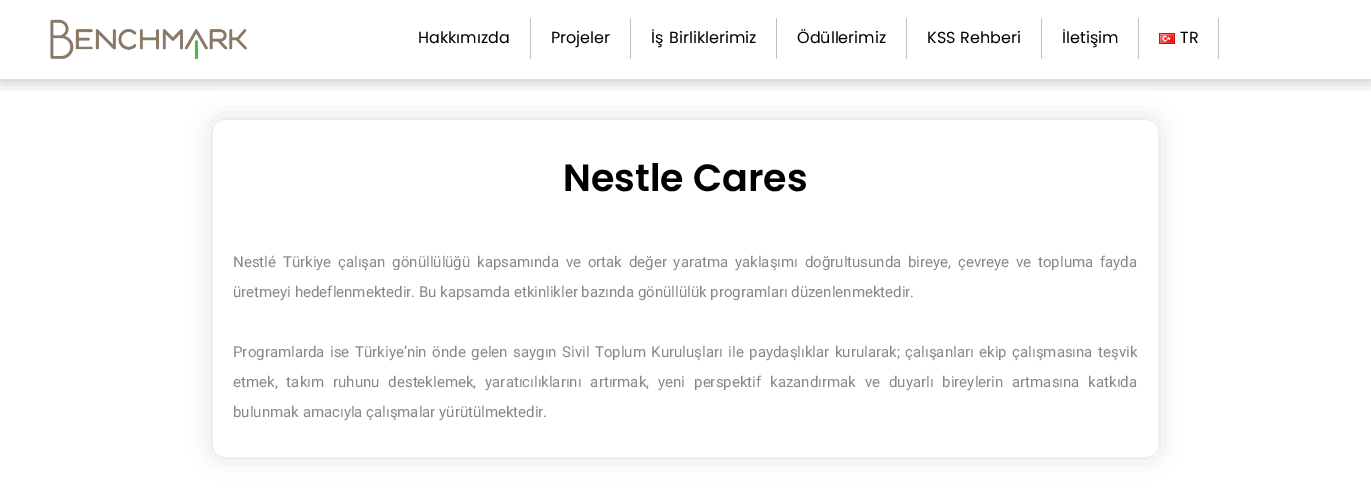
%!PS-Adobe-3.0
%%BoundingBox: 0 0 1371 496
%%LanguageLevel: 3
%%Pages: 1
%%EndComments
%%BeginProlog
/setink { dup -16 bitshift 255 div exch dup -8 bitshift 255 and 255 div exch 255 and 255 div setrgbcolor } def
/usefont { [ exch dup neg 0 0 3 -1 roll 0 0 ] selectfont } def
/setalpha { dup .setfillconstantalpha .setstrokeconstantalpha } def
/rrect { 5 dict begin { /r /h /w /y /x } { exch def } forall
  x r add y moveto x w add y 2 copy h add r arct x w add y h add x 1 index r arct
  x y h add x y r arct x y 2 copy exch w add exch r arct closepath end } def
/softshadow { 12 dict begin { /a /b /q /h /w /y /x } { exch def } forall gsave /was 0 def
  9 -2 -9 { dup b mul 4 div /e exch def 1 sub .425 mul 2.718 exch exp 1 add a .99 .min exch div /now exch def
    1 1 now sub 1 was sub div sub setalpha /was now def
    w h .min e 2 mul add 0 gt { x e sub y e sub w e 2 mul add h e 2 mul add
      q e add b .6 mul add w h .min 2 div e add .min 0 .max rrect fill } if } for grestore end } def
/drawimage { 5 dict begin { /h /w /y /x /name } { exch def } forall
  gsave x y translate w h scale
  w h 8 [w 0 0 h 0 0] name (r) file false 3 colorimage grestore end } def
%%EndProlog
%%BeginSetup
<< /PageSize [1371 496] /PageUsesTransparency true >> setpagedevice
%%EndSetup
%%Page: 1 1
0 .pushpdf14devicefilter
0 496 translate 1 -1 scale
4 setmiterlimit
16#FFFFFF setink
0 0 1371 496 rectfill
gsave
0 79 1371 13 rectclip
16#000000 setink
0 -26 1371 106 0 8.5 0.27 softshadow
grestore
(img1.raw) 50 19 197 40 drawimage
16#C2C2C2 setink
530 18 1 41 rectfill
/Poppins-Regular 16 usefont
16#000000 setink
418 43 moveto (Hakkımızda) show
16#C2C2C2 setink
630 18 1 41 rectfill
16#000000 setink
551 43 moveto (Projeler) show
16#C2C2C2 setink
776 18 1 41 rectfill
16#000000 setink
651 43 moveto (İş) show
669 43 moveto (Birliklerimiz) show
16#C2C2C2 setink
906 18 1 41 rectfill
16#000000 setink
797 43 moveto (Ödüllerimiz) show
16#C2C2C2 setink
1041 18 1 41 rectfill
16#000000 setink
927 43 moveto (KSS) show
960 43 moveto (Rehberi) show
16#C2C2C2 setink
1138 18 1 41 rectfill
16#000000 setink
1062 43 moveto (İletişim) show
16#C2C2C2 setink
1218 18 1 41 rectfill
(img2.raw) 1159 33 16 11 drawimage
16#000000 setink
1180 43 moveto (TR) show
gsave
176 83 moveto 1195 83 lineto 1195 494 lineto 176 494 lineto closepath 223 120 moveto 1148 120 lineto 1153.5 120 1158 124.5 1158 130 curveto 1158 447 lineto 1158 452.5 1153.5 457 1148 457 curveto 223 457 lineto 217.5 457 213 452.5 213 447 curveto 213 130 lineto 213 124.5 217.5 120 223 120 curveto closepath eoclip newpath
213 120 945 337 10 12 0.13 softshadow
grestore
/Poppins-SemiBold 38 usefont
563 191 moveto (Nestle Cares) show
/Roboto-Regular 15 usefont
16#888888 setink
233 267 moveto 3.1 0 32 (Nestlé Türkiye çalışan gönüllülüğü kapsamında ve ortak değer yaratma yaklaşımı doğrultusunda bireye, çevreye ve topluma fayda) widthshow
233 297 moveto (üretmeyi hedeflenmektedir. Bu kapsamda etkinlikler bazında gönüllülük programları düzenlenmektedir.) show
233 357 moveto 1.9 0 32 (Programlarda ise Türkiye’nin önde gelen saygın Sivil Toplum Kuruluşları ile paydaşlıklar kurularak; çalışanları ekip çalışmasına teşvik) widthshow
233 387 moveto 5.25 0 32 (etmek, takım ruhunu desteklemek, yaratıcılıklarını artırmak, yeni perspektif kazandırmak ve duyarlı bireylerin artmasına katkıda) widthshow
233 417 moveto (bulunmak amacıyla çalışmalar yürütülmektedir.) show
.poppdf14devicefilter showpage
%%EOF
